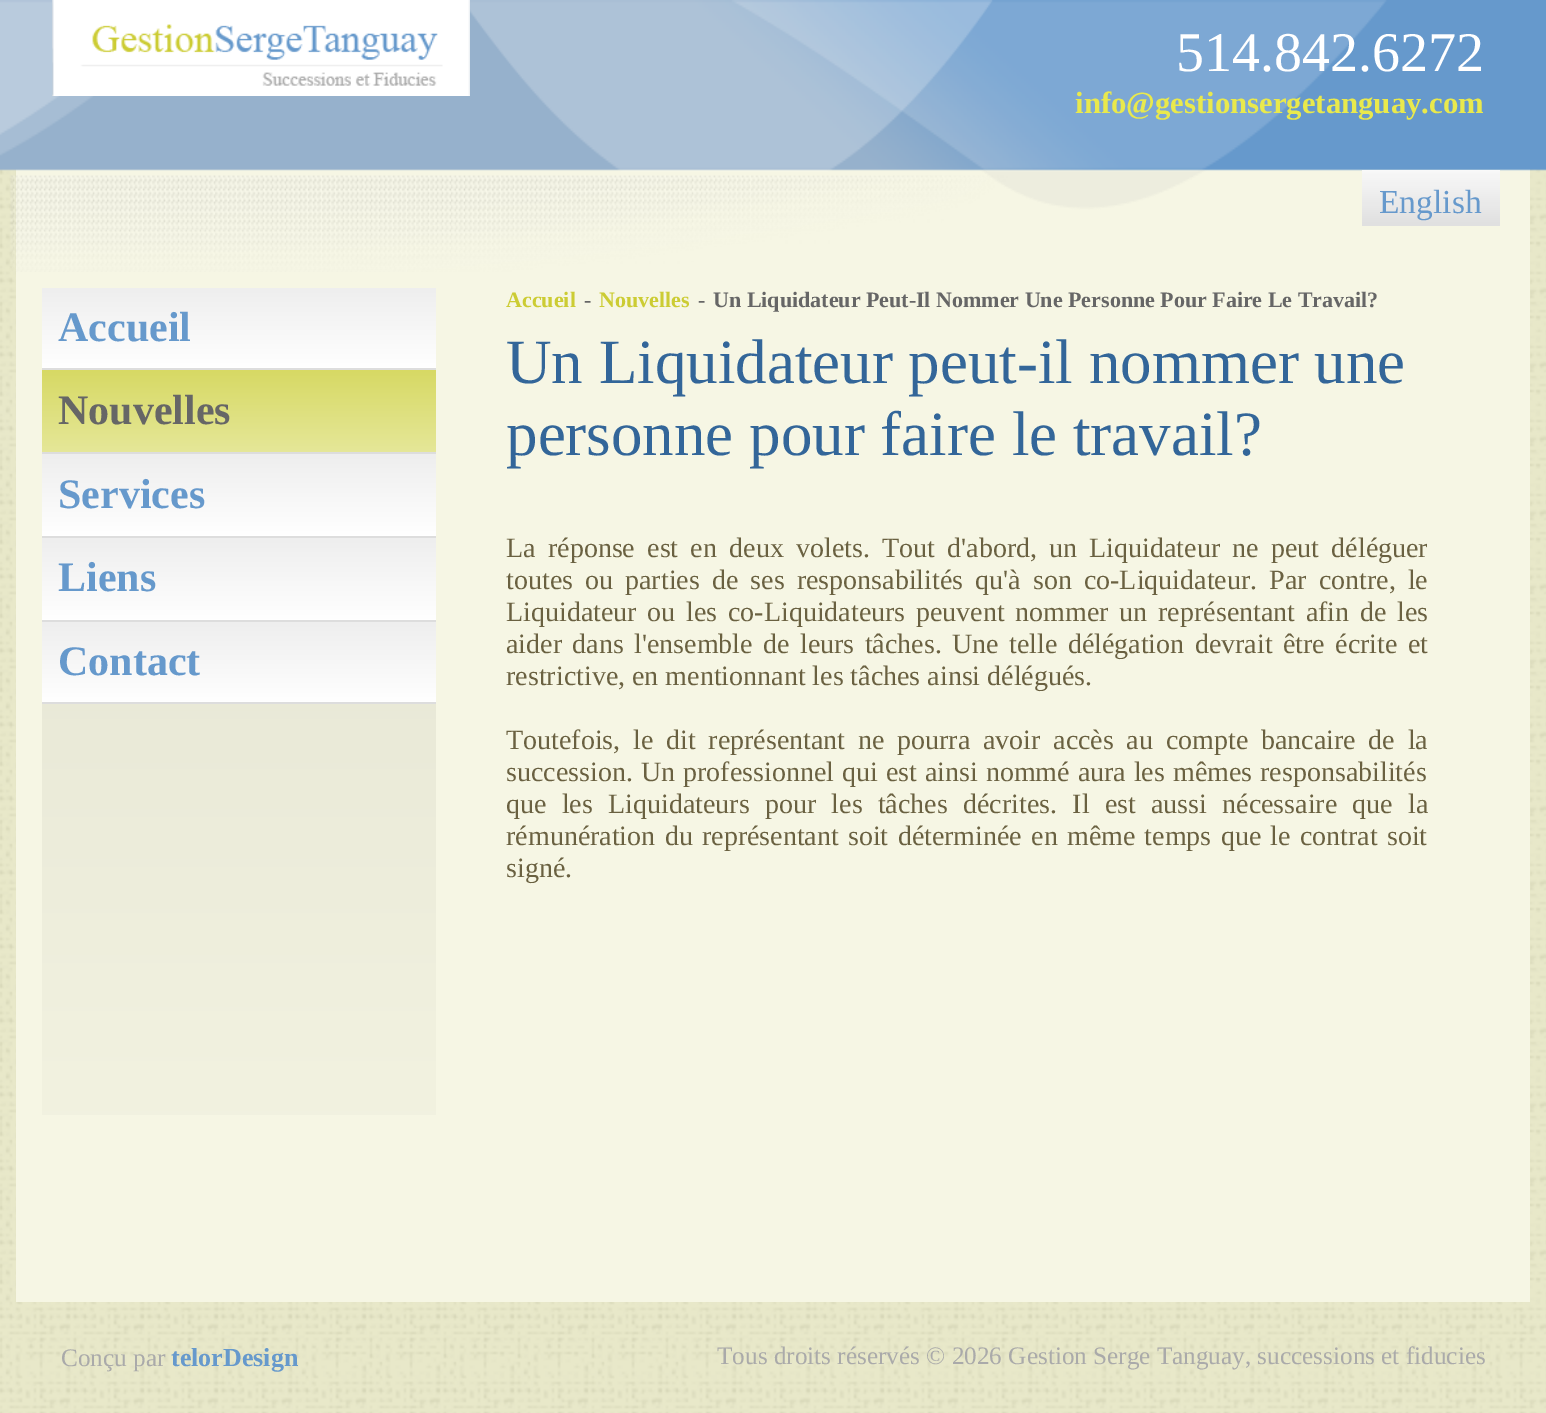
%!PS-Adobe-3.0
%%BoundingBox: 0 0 1546 1413
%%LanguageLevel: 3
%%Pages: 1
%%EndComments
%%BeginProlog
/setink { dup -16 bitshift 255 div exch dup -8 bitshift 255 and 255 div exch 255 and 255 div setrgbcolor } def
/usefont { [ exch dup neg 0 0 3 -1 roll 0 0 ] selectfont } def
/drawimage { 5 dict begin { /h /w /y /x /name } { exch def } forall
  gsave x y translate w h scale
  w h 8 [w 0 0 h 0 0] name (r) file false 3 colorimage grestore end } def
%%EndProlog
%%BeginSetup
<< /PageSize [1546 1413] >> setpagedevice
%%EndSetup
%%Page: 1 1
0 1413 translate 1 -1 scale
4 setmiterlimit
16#FFFFFF setink
0 0 1546 1413 rectfill
(img1.raw) 0 169 1546 1244 drawimage
16#F6F6E4 setink
16 169 1514 1133 rectfill
(img2.raw) 0 0 1546 272 drawimage
(img3.raw) 52 0 418 96 drawimage
/LiberationSerif-Regular 56 usefont
16#FFFFFF setink
1176 71 moveto (514.842.6272) show
/LiberationSerif-Bold 30.75 usefont
16#E9E94C setink
1075 113 moveto (info@gestionsergetanguay.com) show
(img4.raw) 1362 170 138 56 drawimage
/LiberationSerif-Regular 33.5 usefont
16#6699CC setink
1379 213 moveto (English) show
(img5.raw) 42 704 394 411 drawimage
gsave 42 288 moveto 436 288 lineto 436 368 lineto 42 368 lineto closepath clip newpath
<< /ShadingType 2 /ColorSpace /DeviceRGB /Coords [239 288 239 368] /Extend [true true] /Function << /FunctionType 2 /Domain [0 1] /C0 [0.933 0.933 0.933] /C1 [1 1 1] /N 1 >> >> shfill grestore
16#DDDDDD setink
42 368 394 2 rectfill
/LiberationSerif-Bold 42 usefont
16#6699CC setink
58 341 moveto (Accueil) show
gsave 42 370 moveto 436 370 lineto 436 452 lineto 42 452 lineto closepath clip newpath
<< /ShadingType 2 /ColorSpace /DeviceRGB /Coords [239 370 239 452] /Extend [true true] /Function << /FunctionType 2 /Domain [0 1] /C0 [0.843 0.851 0.392] /C1 [0.898 0.906 0.596] /N 1 >> >> shfill grestore
16#DDDDDD setink
42 452 394 2 rectfill
16#666666 setink
58 424 moveto (Nouvelles) show
gsave 42 454 moveto 436 454 lineto 436 536 lineto 42 536 lineto closepath clip newpath
<< /ShadingType 2 /ColorSpace /DeviceRGB /Coords [239 454 239 536] /Extend [true true] /Function << /FunctionType 2 /Domain [0 1] /C0 [0.933 0.933 0.933] /C1 [1 1 1] /N 1 >> >> shfill grestore
16#DDDDDD setink
42 536 394 2 rectfill
16#6699CC setink
58 508 moveto (Services) show
gsave 42 538 moveto 436 538 lineto 436 620 lineto 42 620 lineto closepath clip newpath
<< /ShadingType 2 /ColorSpace /DeviceRGB /Coords [239 538 239 620] /Extend [true true] /Function << /FunctionType 2 /Domain [0 1] /C0 [0.933 0.933 0.933] /C1 [1 1 1] /N 1 >> >> shfill grestore
16#DDDDDD setink
42 620 394 2 rectfill
16#6699CC setink
58 591 moveto (Liens) show
gsave 42 622 moveto 436 622 lineto 436 702 lineto 42 702 lineto closepath clip newpath
<< /ShadingType 2 /ColorSpace /DeviceRGB /Coords [239 622 239 702] /Extend [true true] /Function << /FunctionType 2 /Domain [0 1] /C0 [0.933 0.933 0.933] /C1 [1 1 1] /N 1 >> >> shfill grestore
16#DDDDDD setink
42 702 394 2 rectfill
16#6699CC setink
58 675 moveto (Contact) show
/LiberationSerif-Bold 22 usefont
16#CCCC33 setink
506 307 moveto (Accueil) show
16#666666 setink
584 307 moveto (-) show
16#CCCC33 setink
599 307 moveto (Nouvelles) show
16#666666 setink
698 307 moveto (-) show
713 307 moveto (Un Liquidateur Peut-Il Nommer Une Personne Pour Faire Le Travail?) show
/LiberationSerif-Regular 63 usefont
16#336699 setink
506 383 moveto (Un Liquidateur peut-il nommer une) show
506 455 moveto (personne pour faire le travail?) show
/LiberationSerif-Regular 28 usefont
16#6A6141 setink
506 557 moveto 5.25 0 32 (La réponse est en deux volets. Tout d'abord, un Liquidateur ne peut déléguer) widthshow
506 589 moveto 5.1 0 32 (toutes ou parties de ses responsabilités qu'à son co-Liquidateur. Par contre, le) widthshow
506 621 moveto 3.75 0 32 (Liquidateur ou les co-Liquidateurs peuvent nommer un représentant afin de les) widthshow
506 653 moveto 3.4 0 32 (aider dans l'ensemble de leurs tâches. Une telle délégation devrait être écrite et) widthshow
506 685 moveto (restrictive, en mentionnant les tâches ainsi délégués.) show
506 749 moveto 5.75 0 32 (Toutefois, le dit représentant ne pourra avoir accès au compte bancaire de la) widthshow
506 781 moveto 1 0 32 (succession. Un professionnel qui est ainsi nommé aura les mêmes responsabilités) widthshow
506 813 moveto 8.25 0 32 (que les Liquidateurs pour les tâches décrites. Il est aussi nécessaire que la) widthshow
506 845 moveto 2.25 0 32 (rémunération du représentant soit déterminée en même temps que le contrat soit) widthshow
506 877 moveto (signé.) show
/LiberationSerif-Regular 25.2 usefont
16#AAAAAA setink
61 1366 moveto (Conçu par) show
/LiberationSerif-Bold 26 usefont
16#6699CC setink
171 1366 moveto (telorDesign) show
/LiberationSerif-Regular 25.2 usefont
16#AAAAAA setink
717 1364 moveto (Tous droits réservés © 2026 Gestion Serge Tanguay, successions et fiducies) show
showpage
%%EOF
